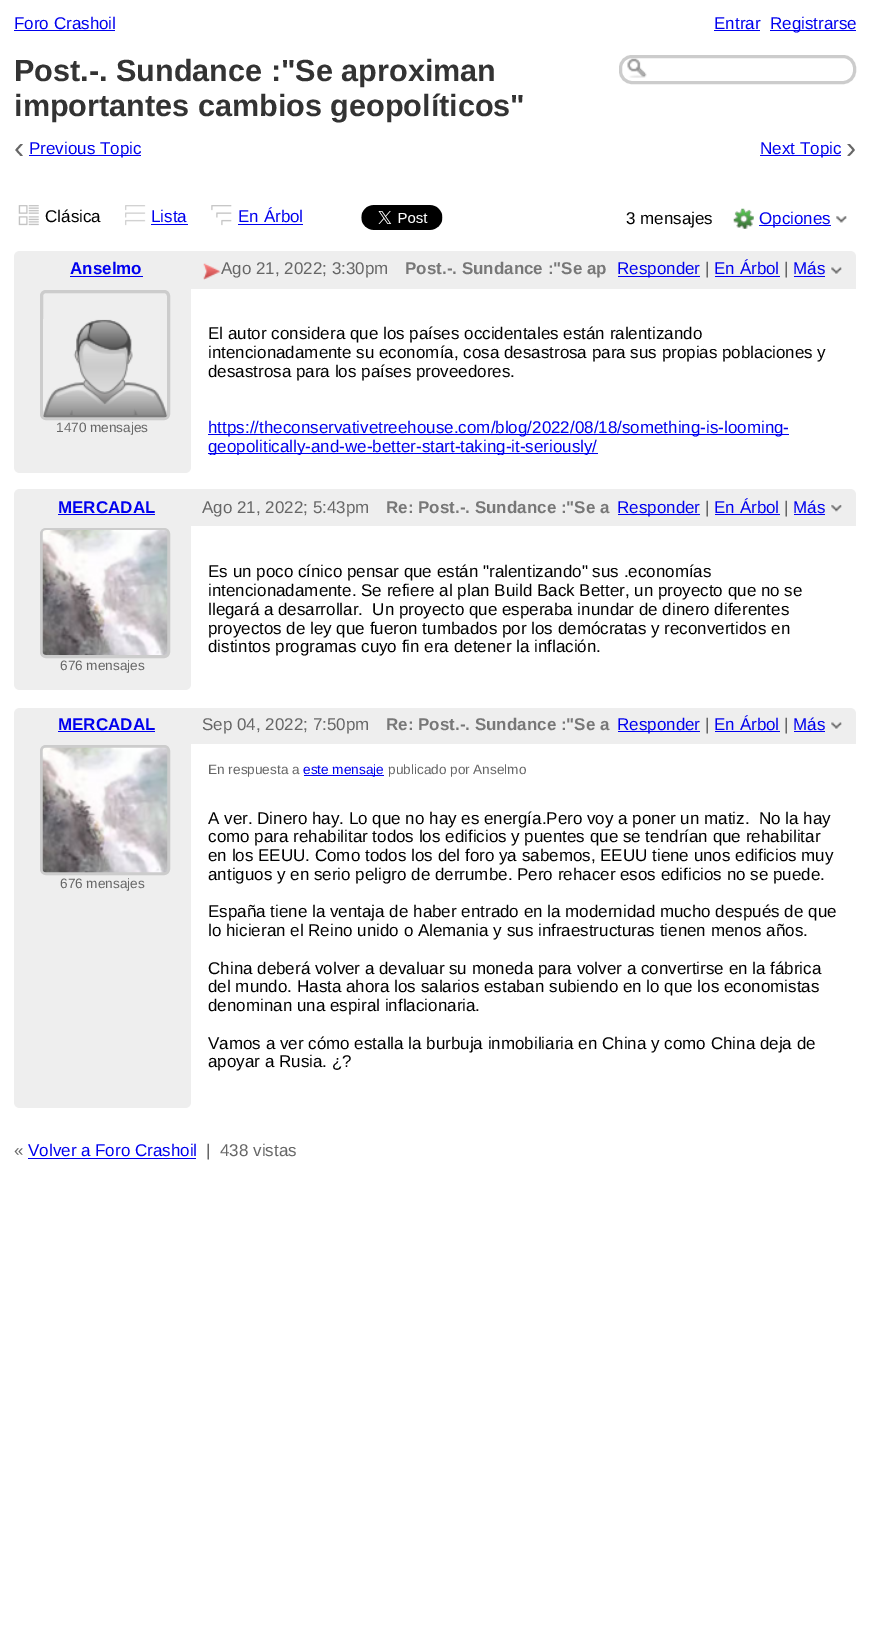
%!PS-Adobe-3.0
%%BoundingBox: 0 0 870 1630
%%LanguageLevel: 3
%%Pages: 1
%%EndComments
%%BeginProlog
/setink { dup -16 bitshift 255 div exch dup -8 bitshift 255 and 255 div exch 255 and 255 div setrgbcolor } def
/usefont { [ exch dup neg 0 0 3 -1 roll 0 0 ] selectfont } def
/rrect { 5 dict begin { /r /h /w /y /x } { exch def } forall
  x r add y moveto x w add y 2 copy h add r arct x w add y h add x 1 index r arct
  x y h add x y r arct x y 2 copy exch w add exch r arct closepath end } def
/drawimage { 5 dict begin { /h /w /y /x /name } { exch def } forall
  gsave x y translate w h scale
  w h 8 [w 0 0 h 0 0] name (r) file false 3 colorimage grestore end } def
%%EndProlog
%%BeginSetup
<< /PageSize [870 1630] >> setpagedevice
%%EndSetup
%%Page: 1 1
0 1630 translate 1 -1 scale
4 setmiterlimit
16#FFFFFF setink
0 0 870 1630 rectfill
/LiberationSans-Regular 17 usefont
16#0000EE setink
14 29 moveto (Foro Crashoil) show
14 30 101 1 rectfill
714 29 moveto (Entrar) show
714 30 46 1 rectfill
770 30 86 1 rectfill
770 29 moveto (Registrarse) show
/LiberationSans-Bold 30.6 usefont
16#333333 setink
14 81 moveto (Post.-. Sundance :"Se aproximan) show
14 116 moveto (importantes cambios geopolíticos") show
(img1.raw) 627 58 20 20 drawimage
16#CCCCCC setink
3 setlinewidth
620.5 56.5 234 26 11.5 rrect stroke
/LiberationSans-Regular 30.6 usefont
16#666666 setink
14 158 moveto (‹) show
16#0000EE setink
29 155 112 1 rectfill
/LiberationSans-Regular 17 usefont
29 154 moveto (Previous Topic) show
760 155 81 1 rectfill
760 154 moveto (Next Topic) show
/LiberationSans-Regular 30.6 usefont
16#666666 setink
846 158 moveto (›) show
(img2.raw) 18 205 21 21 drawimage
/LiberationSans-Regular 17 usefont
16#000000 setink
45 222 moveto (Clásica) show
(img3.raw) 125 205 21 21 drawimage
16#0000EE setink
151 222 moveto (Lista) show
151 224 37 1 rectfill
(img4.raw) 211 205 21 21 drawimage
238 222 moveto (En Árbol) show
238 224 65 1 rectfill
(img5.raw) 361 205 82 25 drawimage
16#000000 setink
626 224 moveto (3 mensajes) show
(img6.raw) 733 208 21 21 drawimage
16#0000EE setink
759 225 72 1 rectfill
759 224 moveto (Opciones) show
(img7.raw) 836 216 11 7 drawimage
16#EEEEEE setink
20 251 moveto 850 251 lineto 853.5 251 856 253.5 856 257 curveto 856 289 lineto 14 289 lineto 14 257 lineto 14 253.5 16.5 251 20 251 curveto closepath fill
/LiberationSans-Bold 17 usefont
16#0000EE setink
70 274 moveto (Anselmo) show
70 276 73 1 rectfill
(img8.raw) 203 263 18 17 drawimage
/LiberationSans-Regular 17 usefont
16#666666 setink
221 274 moveto (Ago 21, 2022; 3:30pm) show
/LiberationSans-Bold 17 usefont
16#777777 setink
405 274 moveto (Post.-. Sundance :"Se ap) show
16#0000EE setink
618 276 82 1 rectfill
/LiberationSans-Regular 17 usefont
617 274 moveto (Responder) show
16#666666 setink
705 274 moveto (|) show
16#0000EE setink
714 274 moveto (En Árbol) show
715 276 65 1 rectfill
16#666666 setink
784 274 moveto (|) show
16#0000EE setink
793 274 moveto (Más) show
794 276 31 1 rectfill
(img9.raw) 830 267 12 8 drawimage
16#EEEEEE setink
14 289 moveto 191 289 lineto 191 467 lineto 191 470.5 188.5 473 185 473 curveto 20 473 lineto 16.5 473 14 470.5 14 467 curveto closepath fill
16#CCCCCC setink
41.5 291.5 127 127 4.5 rrect stroke
(img10.raw) 43 319 125 99 drawimage
/LiberationSans-Regular 13.6 usefont
16#666666 setink
56 432 moveto (1470 mensajes) show
/LiberationSans-Regular 17 usefont
16#000000 setink
[
    [(El autor considera que los países occidentales están ralentizando) 208 339]
    [(intencionadamente su economía, cosa desastrosa para sus propias poblaciones y) 208 358]
    [(desastrosa para los países proveedores.) 208 377]
] { aload pop moveto show } forall
16#0000EE setink
208 434 581 1 rectfill
208 433 moveto (https://theconservativetreehouse.com/blog/2022/08/18/something-is-looming-) show
208 453 390 1 rectfill
gsave
208 305 632 150 rectclip
208 452 moveto (geopolitically-and-we-better-start-taking-it-seriously/) show
grestore
16#EEEEEE setink
20 489 moveto 850 489 lineto 853.5 489 856 491.5 856 495 curveto 856 526 lineto 14 526 lineto 14 495 lineto 14 491.5 16.5 489 20 489 curveto closepath fill
/LiberationSans-Bold 17 usefont
16#0000EE setink
58 513 moveto (MERCADAL) show
58 514 97 1 rectfill
/LiberationSans-Regular 17 usefont
16#666666 setink
202 513 moveto (Ago 21, 2022; 5:43pm) show
/LiberationSans-Bold 17 usefont
16#777777 setink
386 513 moveto (Re: Post.-. Sundance :"Se a) show
16#0000EE setink
618 514 82 1 rectfill
/LiberationSans-Regular 17 usefont
617 513 moveto (Responder) show
16#666666 setink
705 513 moveto (|) show
16#0000EE setink
714 513 moveto (En Árbol) show
715 514 65 1 rectfill
16#666666 setink
784 513 moveto (|) show
16#0000EE setink
793 513 moveto (Más) show
794 514 31 1 rectfill
(img11.raw) 830 504 12 8 drawimage
16#000000 setink
[
    [(Es un poco cínico pensar que están "ralentizando" sus .economías) 208 577]
    [(intencionadamente. Se refiere al plan Build Back Better, un proyecto que no se) 208 596]
    [(llegará a desarrollar.  Un proyecto que esperaba inundar de dinero diferentes) 208 615]
    [(proyectos de ley que fueron tumbados por los demócratas y reconvertidos en) 208 634]
    [(distintos programas cuyo fin era detener la inflación.) 208 652]
] { aload pop moveto show } forall
16#EEEEEE setink
14 526 moveto 191 526 lineto 191 684 lineto 191 687.5 188.5 690 185 690 curveto 20 690 lineto 16.5 690 14 687.5 14 684 curveto closepath fill
16#CCCCCC setink
41.5 529.5 127 127 4.5 rrect stroke
(img12.raw) 42 530 126 125 drawimage
/LiberationSans-Regular 13.6 usefont
16#666666 setink
60 670 moveto (676 mensajes) show
16#EEEEEE setink
20 708 moveto 850 708 lineto 853.5 708 856 710.5 856 714 curveto 856 744 lineto 14 744 lineto 14 714 lineto 14 710.5 16.5 708 20 708 curveto closepath fill
/LiberationSans-Bold 17 usefont
16#0000EE setink
58 730 moveto (MERCADAL) show
58 731 97 1 rectfill
/LiberationSans-Regular 17 usefont
16#666666 setink
202 730 moveto (Sep 04, 2022; 7:50pm) show
/LiberationSans-Bold 17 usefont
16#777777 setink
386 730 moveto (Re: Post.-. Sundance :"Se a) show
16#0000EE setink
618 731 82 1 rectfill
/LiberationSans-Regular 17 usefont
617 730 moveto (Responder) show
16#666666 setink
705 730 moveto (|) show
16#0000EE setink
714 730 moveto (En Árbol) show
715 731 65 1 rectfill
16#666666 setink
784 730 moveto (|) show
16#0000EE setink
793 730 moveto (Más) show
794 731 31 1 rectfill
(img9.raw) 830 722 12 8 drawimage
16#EEEEEE setink
14 744 moveto 191 744 lineto 191 1102 lineto 191 1105.5 188.5 1108 185 1108 curveto 20 1108 lineto 16.5 1108 14 1105.5 14 1102 curveto closepath fill
16#CCCCCC setink
41.5 746.5 127 127 4.5 rrect stroke
(img13.raw) 42 747 126 126 drawimage
/LiberationSans-Regular 13.6 usefont
16#666666 setink
60 888 moveto (676 mensajes) show
208 774 moveto (En respuesta a) show
16#0000EE setink
304 775 80 1 rectfill
303 774 moveto (este mensaje) show
16#666666 setink
388 774 moveto (publicado por Anselmo) show
/LiberationSans-Regular 17 usefont
16#000000 setink
[
    [(A ver. Dinero hay. Lo que no hay es energía.Pero voy a poner un matiz.  No la hay) 208 824]
    [(como para rehabilitar todos los edificios y puentes que se tendrían que rehabilitar) 208 842]
    [(en los EEUU. Como todos los del foro ya sabemos, EEUU tiene unos edificios muy) 208 861]
    [(antiguos y en serio peligro de derrumbe. Pero rehacer esos edificios no se puede.) 208 880]
    [(España tiene la ventaja de haber entrado en la modernidad mucho después de que) 208 917]
    [(lo hicieran el Reino unido o Alemania y sus infraestructuras tienen menos años.) 208 936]
    [(China deberá volver a devaluar su moneda para volver a convertirse en la fábrica) 208 974]
    [(del mundo. Hasta ahora los salarios estaban subiendo en lo que los economistas) 208 992]
    [(denominan una espiral inflacionaria.) 208 1011]
    [(Vamos a ver cómo estalla la burbuja inmobiliaria en China y como China deja de) 208 1049]
    [(apoyar a Rusia. ¿?) 208 1067]
] { aload pop moveto show } forall
16#666666 setink
14 1156 moveto («) show
16#0000EE setink
28 1156 moveto (Volver a Foro Crashoil) show
28 1158 168 1 rectfill
16#666666 setink
206 1156 moveto (|) show
220 1156 moveto (438 vistas) show
showpage
%%EOF
